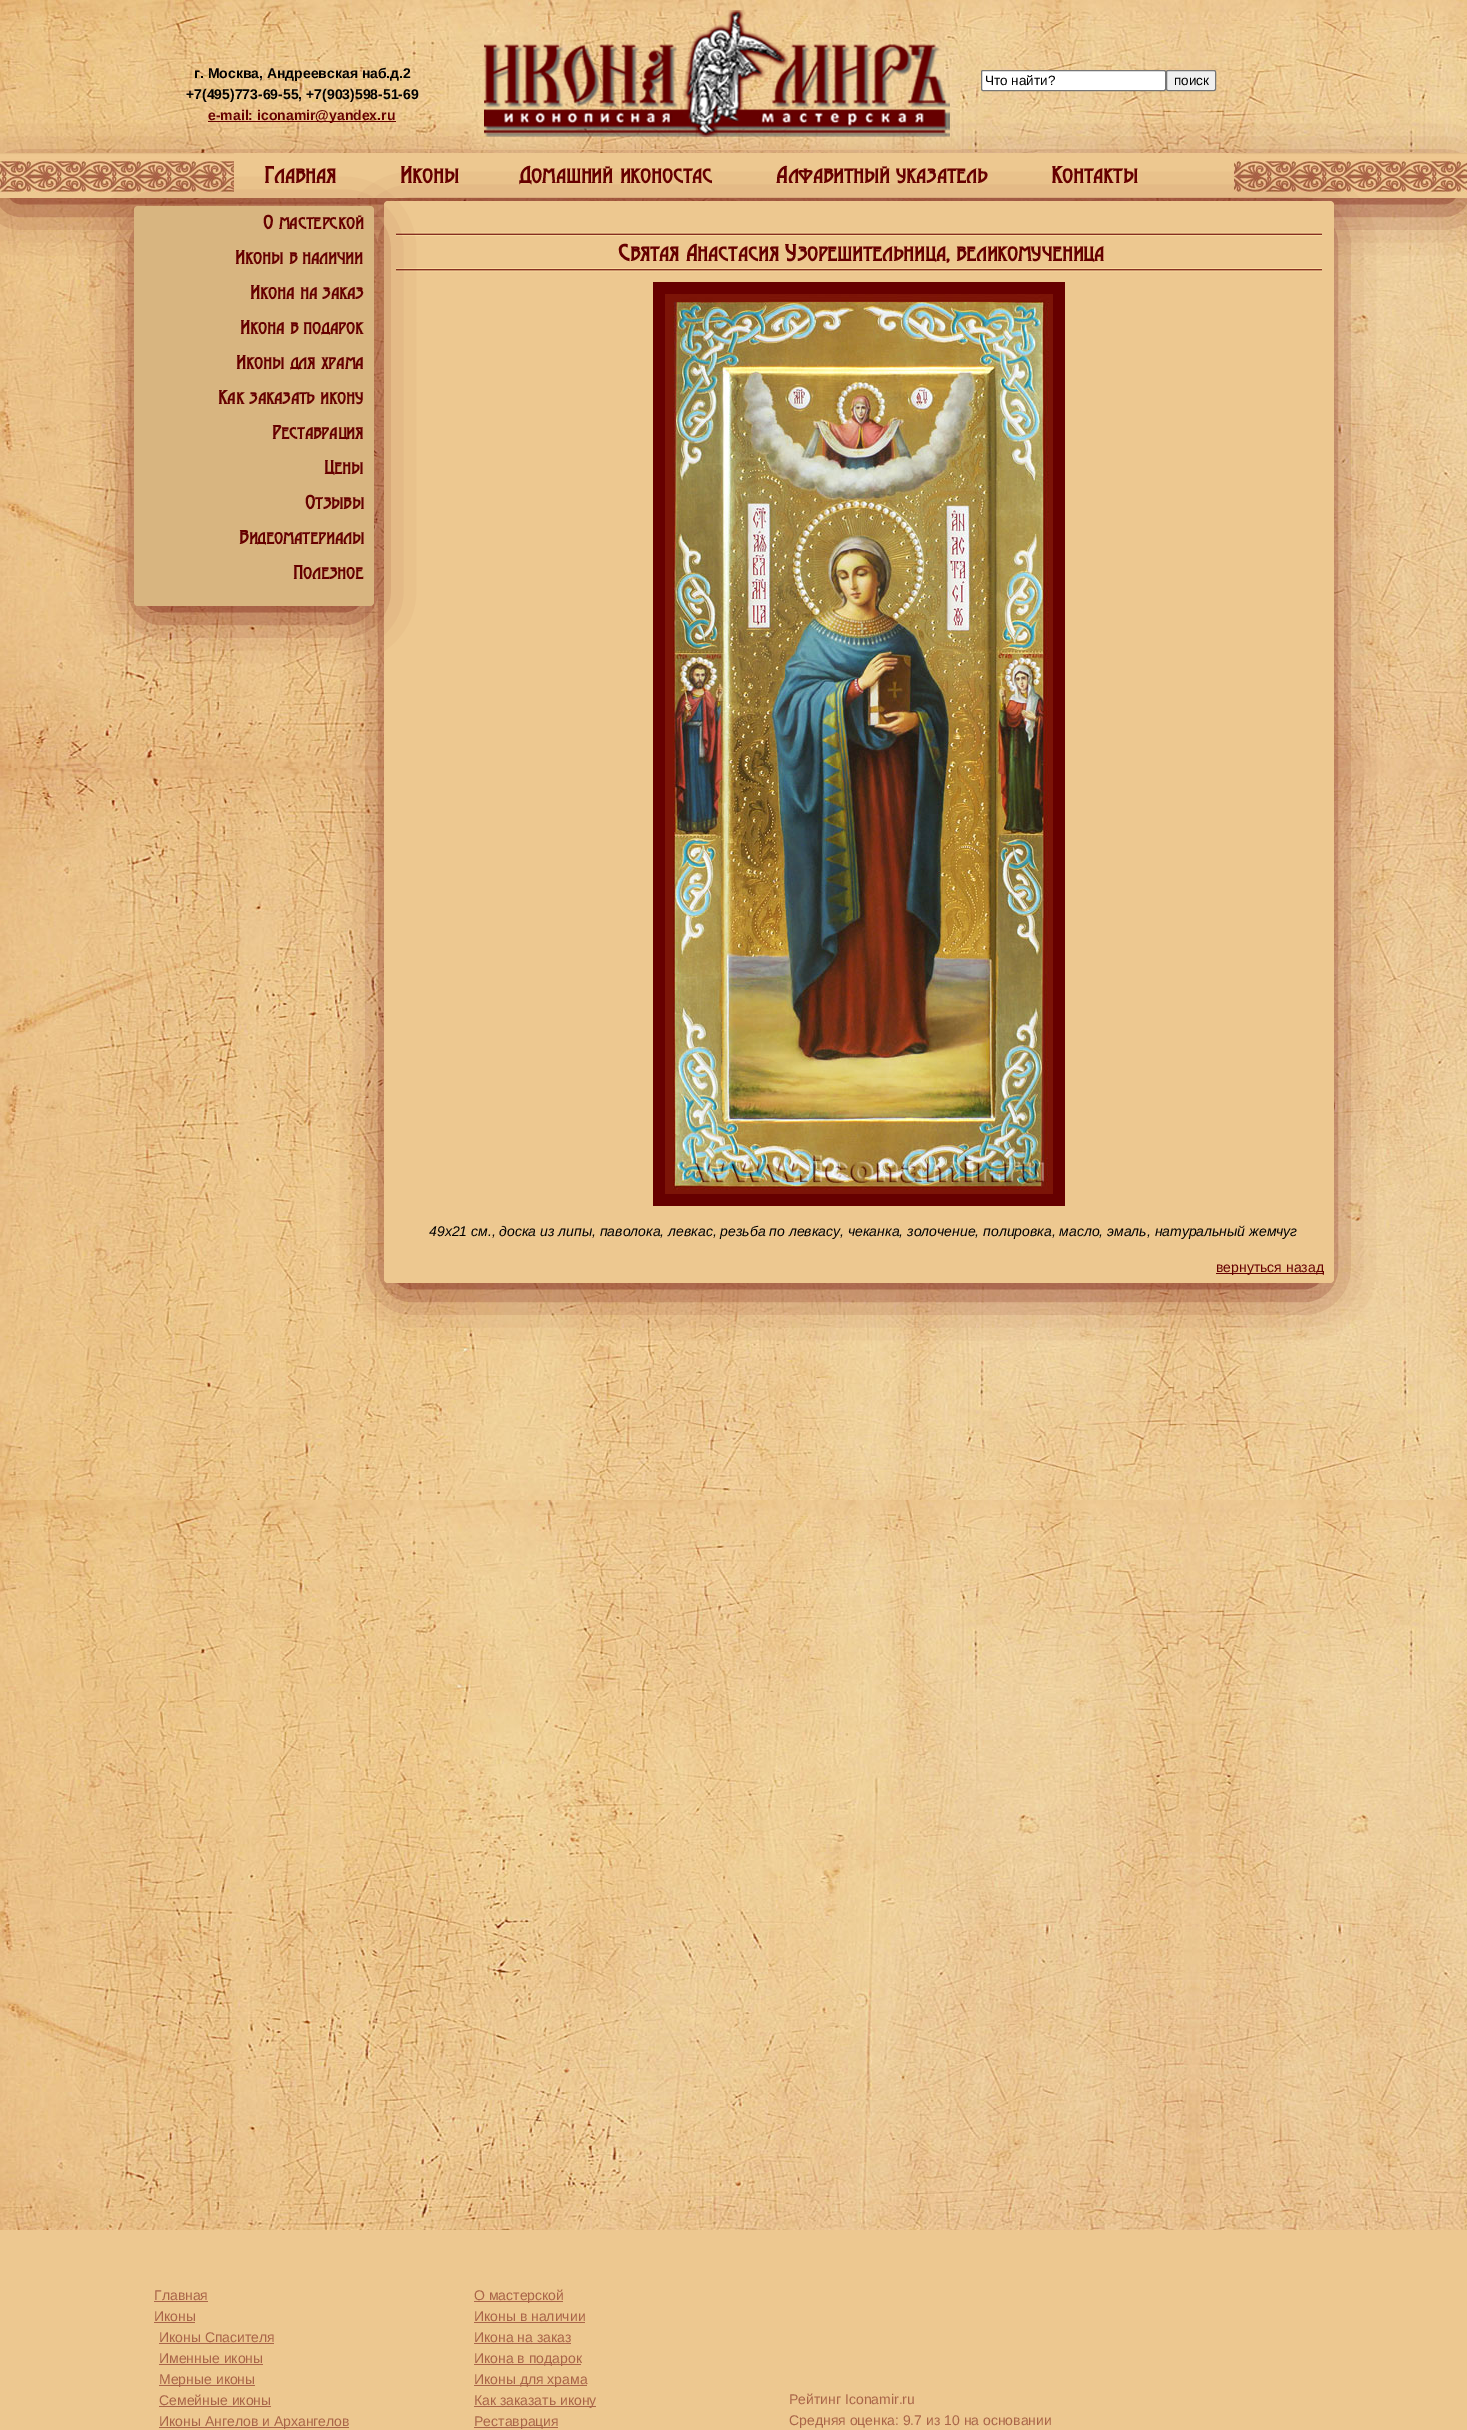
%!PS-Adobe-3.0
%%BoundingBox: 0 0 1467 2430
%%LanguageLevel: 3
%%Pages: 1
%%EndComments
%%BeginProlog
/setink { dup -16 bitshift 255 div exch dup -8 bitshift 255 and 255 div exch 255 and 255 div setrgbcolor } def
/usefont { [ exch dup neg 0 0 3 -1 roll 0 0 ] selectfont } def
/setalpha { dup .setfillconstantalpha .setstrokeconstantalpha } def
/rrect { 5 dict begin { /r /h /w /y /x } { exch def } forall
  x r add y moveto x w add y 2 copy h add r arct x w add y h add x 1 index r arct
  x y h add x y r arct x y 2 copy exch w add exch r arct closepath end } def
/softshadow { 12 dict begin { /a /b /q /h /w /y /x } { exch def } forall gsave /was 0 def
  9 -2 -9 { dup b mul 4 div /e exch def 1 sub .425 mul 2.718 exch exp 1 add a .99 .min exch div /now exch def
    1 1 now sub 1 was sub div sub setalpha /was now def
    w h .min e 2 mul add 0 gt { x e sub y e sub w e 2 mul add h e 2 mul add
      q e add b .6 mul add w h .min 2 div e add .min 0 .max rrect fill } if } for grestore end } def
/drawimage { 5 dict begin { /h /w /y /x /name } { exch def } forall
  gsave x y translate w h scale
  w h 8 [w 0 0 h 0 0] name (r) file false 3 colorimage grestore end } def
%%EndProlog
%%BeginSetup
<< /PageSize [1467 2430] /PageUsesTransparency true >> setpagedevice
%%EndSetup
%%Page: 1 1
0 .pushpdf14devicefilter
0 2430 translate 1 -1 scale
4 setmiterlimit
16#FFFFFF setink
0 0 1467 2430 rectfill
(img1.raw) 0 0 1467 2230 drawimage
/LiberationSans-Bold 14 usefont
16#000000 setink
194 78 moveto (г. Москва, Андреевская наб.д.2) show
186 99 moveto (+7\(495\)773-69-55, +7\(903\)598-51-69) show
16#660000 setink
13 181 1439 17 0 25.5 1 softshadow
208 121 188 1 rectfill
208 120 moveto (e-mail: iconamir@yandex.ru) show
(img2.raw) 471 10 490 140 drawimage
16#FFFFFF setink
981.5 70.5 184 20 1.5 rrect gsave fill grestore
16#767676 setink
stroke
/LiberationSans-Regular 13.5 usefont
16#000000 setink
985 85 moveto (Что найти?) show
16#EFEFEF setink
1166.5 70.5 49 20 1.5 rrect gsave fill grestore
16#767676 setink
stroke
16#000000 setink
1174 85 moveto (поиск) show
(img3.raw) 0 153 1467 45 drawimage
16#EDC890 setink
234 153 1000 40 rectfill
/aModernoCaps-Bold 22 usefont
16#660000 setink
[
    [(Главная) 264 183]
    [(Иконы) 400 183]
    [(Домашний иконостас) 519 183]
    [(Алфавитный указатель) 776 183]
    [(Контакты) 1051 183]
] { aload pop moveto show } forall
397 229 922 1054 0 25.5 1 softshadow
16#EDC890 setink
384 201 950 1082 4 rrect fill
(img4.raw) 396 232 926 40 drawimage
16#660000 setink
147 234 212 372 0 25.5 1 softshadow
16#D8B580 setink
134 206 240 400 4 rrect fill
/aModernoCaps-Bold 18 usefont
16#660000 setink
[
    [(О мастерской) 263 229]
    [(Иконы в наличии) 235 264]
    [(Икона на заказ) 250 299]
    [(Икона в подарок) 240 334]
    [(Иконы для храма) 236 369]
    [(Как заказать икону) 218 404]
    [(Реставрация) 272 439]
    [(Цены) 324 474]
    [(Отзывы) 305 509]
    [(Видеоматериалы) 239 544]
    [(Полезное) 293 579]
] { aload pop moveto show } forall
/aModernoCaps-Bold 22 usefont
618 261 moveto (Святая Анастасия Узорешительница, великомученица) show
653 282 412 924 rectfill
(img5.raw) 665 294 388 900 drawimage
/LiberationSans-Italic 14 usefont
16#000000 setink
429 1236 moveto (49х21 см., доска из липы, паволока, левкас, резьба по левкасу, чеканка, золочение, полировка, масло, эмаль, натуральный жемчуг) show
16#660000 setink
1216 1273 108 1 rectfill
/LiberationSans-Regular 14 usefont
1216 1272 moveto (вернуться назад) show
16#EDC890 setink
0 2230 1467 200 rectfill
16#A96448 setink
154 2300 moveto (Главная) show
154 2301 54 1 rectfill
154 2321 moveto (Иконы) show
154 2322 41 1 rectfill
159 2342 moveto (Иконы Спасителя) show
159 2343 115 1 rectfill
159 2363 moveto (Именные иконы) show
159 2364 104 1 rectfill
159 2385 96 1 rectfill
159 2384 moveto (Мерные иконы) show
159 2405 moveto (Семейные иконы) show
159 2406 112 1 rectfill
159 2427 190 1 rectfill
159 2426 moveto (Иконы Ангелов и Архангелов) show
474 2301 89 1 rectfill
474 2300 moveto (О мастерской) show
474 2321 moveto (Иконы в наличии) show
474 2322 111 1 rectfill
474 2342 moveto (Икона на заказ) show
474 2343 97 1 rectfill
474 2364 107 1 rectfill
474 2363 moveto (Икона в подарок) show
474 2385 113 1 rectfill
474 2384 moveto (Иконы для храма) show
474 2406 122 1 rectfill
474 2405 moveto (Как заказать икону) show
474 2427 84 1 rectfill
[
    [(Реставрация) 474 2426]
    [(Рейтинг Iconamir.ru) 789 2404]
    [(Средняя оценка: 9.7 из 10 на основании) 789 2425]
] { aload pop moveto show } forall
.poppdf14devicefilter showpage
%%EOF
